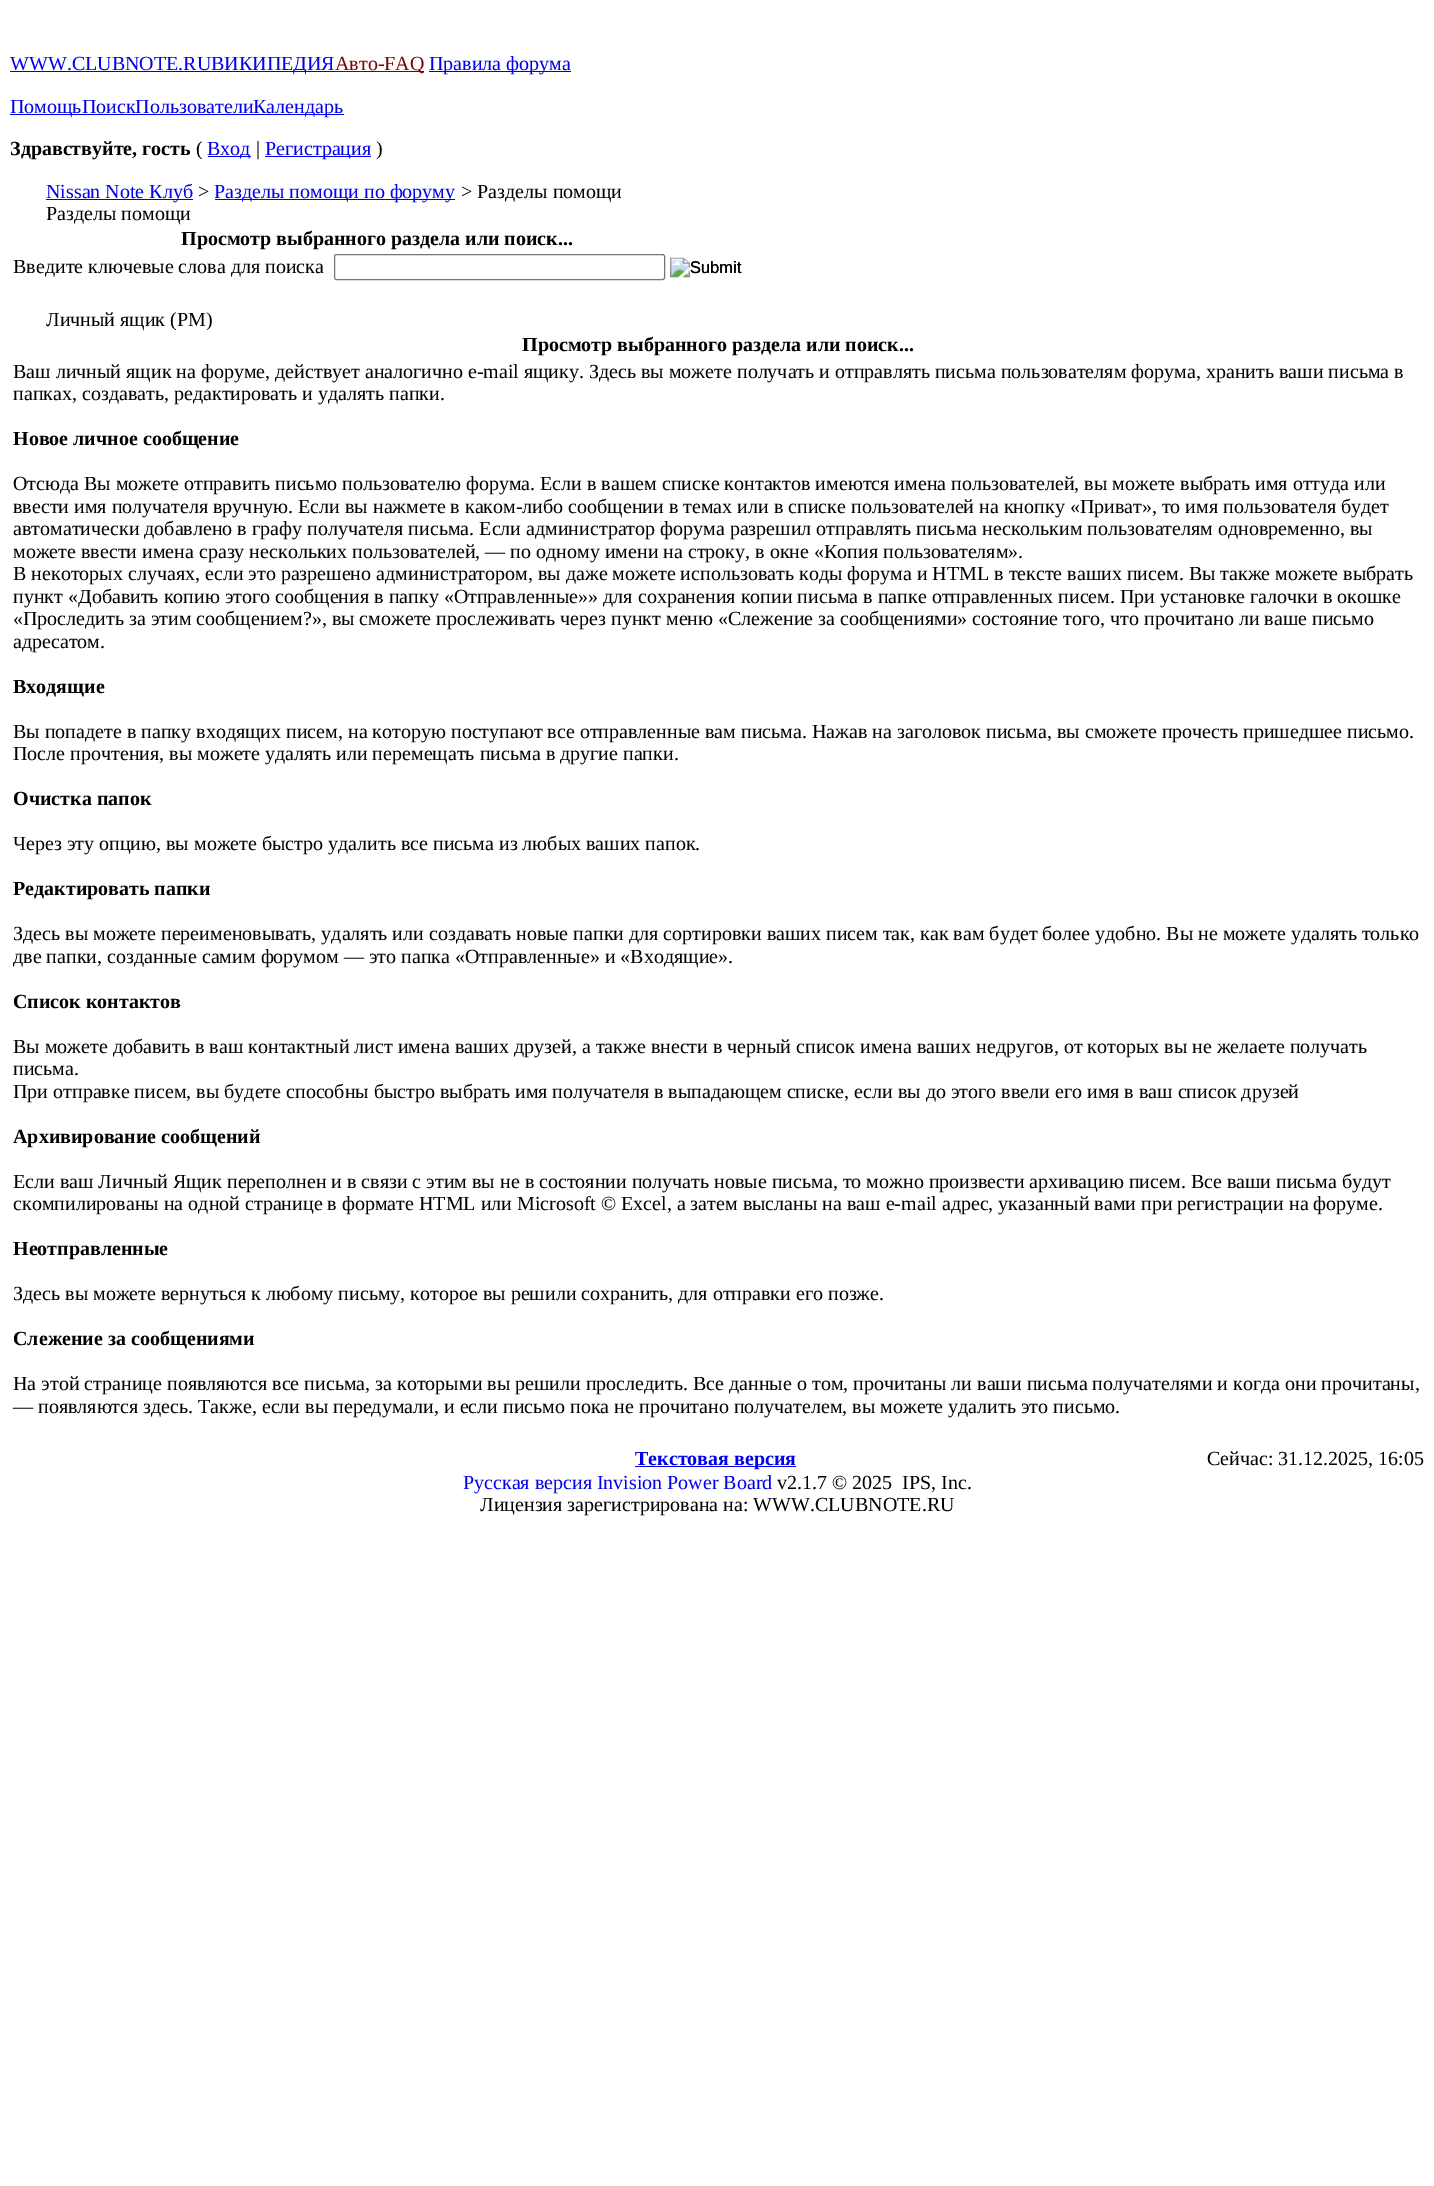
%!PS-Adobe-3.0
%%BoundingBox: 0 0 1434 2186
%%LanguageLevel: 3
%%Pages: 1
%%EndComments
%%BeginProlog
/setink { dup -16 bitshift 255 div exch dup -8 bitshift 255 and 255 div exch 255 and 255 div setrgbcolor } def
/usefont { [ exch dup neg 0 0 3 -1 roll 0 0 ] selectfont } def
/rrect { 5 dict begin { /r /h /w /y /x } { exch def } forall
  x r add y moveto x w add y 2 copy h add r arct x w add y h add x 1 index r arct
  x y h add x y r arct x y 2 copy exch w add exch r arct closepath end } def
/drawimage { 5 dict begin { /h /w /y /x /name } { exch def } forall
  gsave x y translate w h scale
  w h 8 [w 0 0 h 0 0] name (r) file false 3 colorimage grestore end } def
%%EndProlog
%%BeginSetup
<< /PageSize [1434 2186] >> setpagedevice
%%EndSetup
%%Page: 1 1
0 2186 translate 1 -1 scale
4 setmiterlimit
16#FFFFFF setink
0 0 1434 2186 rectfill
16#0000EE setink
10 71 325 1 rectfill
/LiberationSerif-Regular 20 usefont
10 70 moveto (WWW.CLUBNOTE.RUВИКИПЕДИЯ) show
16#800000 setink
335 71 89 1 rectfill
335 70 moveto (Авто-FAQ) show
16#0000EE setink
429 71 142 1 rectfill
429 70 moveto (Правила форума) show
10 114 125 1 rectfill
10 113 moveto (ПомощьПоискПользователи) show
135 114 209 1 rectfill
253 113 moveto (Календарь) show
/LiberationSerif-Bold 20 usefont
16#000000 setink
10 155 moveto (Здравствуйте, гость) show
/LiberationSerif-Regular 20 usefont
196 155 moveto (\() show
16#0000EE setink
208 156 43 1 rectfill
207 155 moveto (Вход) show
16#000000 setink
256 155 moveto (|) show
16#0000EE setink
265 156 106 1 rectfill
265 155 moveto (Регистрация) show
16#000000 setink
376 155 moveto (\)) show
16#0000EE setink
46 199 147 1 rectfill
46 198 moveto (Nissan Note Клуб) show
16#000000 setink
198 198 moveto (>) show
16#0000EE setink
215 199 240 1 rectfill
214 198 moveto (Разделы помощи по форуму) show
16#000000 setink
461 198 moveto (> Разделы помощи) show
46 220 moveto (Разделы помощи) show
/LiberationSerif-Bold 20 usefont
181 245 moveto (Просмотр выбранного раздела или поиск...) show
/LiberationSerif-Regular 20 usefont
13 273 moveto (Введите ключевые слова для поиска) show
16#767676 setink
334.5 254.5 330 25 2 rrect stroke
(img1.raw) 670 257 72 21 drawimage
/LiberationSans-Regular 16.5 usefont
16#000000 setink
690 273 moveto (Submit) show
/LiberationSerif-Regular 20 usefont
46 326 moveto (Личный ящик \(PM\)) show
/LiberationSerif-Bold 20 usefont
522 351 moveto (Просмотр выбранного раздела или поиск...) show
/LiberationSerif-Regular 20 usefont
13 378 moveto (Ваш личный ящик на форуме, действует аналогично e-mail ящику. Здесь вы можете получать и отправлять письма пользователям форума, хранить ваши письма в) show
13 400 moveto (папках, создавать, редактировать и удалять папки.) show
/LiberationSerif-Bold 20 usefont
13 445 moveto (Новое личное сообщение) show
/LiberationSerif-Regular 20 usefont
[
    [(Отсюда Вы можете отправить письмо пользователю форума. Если в вашем списке контактов имеются имена пользователей, вы можете выбрать имя оттуда или) 13 490]
    [(ввести имя получателя вручную. Если вы нажмете в каком-либо сообщении в темах или в списке пользователей на кнопку «Приват», то имя пользователя будет) 13 513]
    [(автоматически добавлено в графу получателя письма. Если администратор форума разрешил отправлять письма нескольким пользователям одновременно, вы) 13 535]
    [(можете ввести имена сразу нескольких пользователей, — по одному имени на строку, в окне «Копия пользователям».) 13 558]
    [(В некоторых случаях, если это разрешено администратором, вы даже можете использовать коды форума и HTML в тексте ваших писем. Вы также можете выбрать) 13 580]
    [(пункт «Добавить копию этого сообщения в папку «Отправленные»» для сохранения копии письма в папке отправленных писем. При установке галочки в окошке) 13 603]
    [(«Проследить за этим сообщением?», вы сможете прослеживать через пункт меню «Слежение за сообщениями» состояние того, что прочитано ли ваше письмо) 13 625]
    [(адресатом.) 13 648]
] { aload pop moveto show } forall
/LiberationSerif-Bold 20 usefont
13 693 moveto (Входящие) show
/LiberationSerif-Regular 20 usefont
13 738 moveto (Вы попадете в папку входящих писем, на которую поступают все отправленные вам письма. Нажав на заголовок письма, вы сможете прочесть пришедшее письмо.) show
13 760 moveto (После прочтения, вы можете удалять или перемещать письма в другие папки.) show
/LiberationSerif-Bold 20 usefont
13 805 moveto (Очистка папок) show
/LiberationSerif-Regular 20 usefont
13 850 moveto (Через эту опцию, вы можете быстро удалить все письма из любых ваших папок.) show
/LiberationSerif-Bold 20 usefont
13 895 moveto (Редактировать папки) show
/LiberationSerif-Regular 20 usefont
13 940 moveto (Здесь вы можете переименовывать, удалять или создавать новые папки для сортировки ваших писем так, как вам будет более удобно. Вы не можете удалять только) show
13 963 moveto (две папки, созданные самим форумом — это папка «Отправленные» и «Входящие».) show
/LiberationSerif-Bold 20 usefont
13 1008 moveto (Список контактов) show
/LiberationSerif-Regular 20 usefont
[
    [(Вы можете добавить в ваш контактный лист имена ваших друзей, а также внести в черный список имена ваших недругов, от которых вы не желаете получать) 13 1053]
    [(письма.) 13 1075]
    [(При отправке писем, вы будете способны быстро выбрать имя получателя в выпадающем списке, если вы до этого ввели его имя в ваш список друзей) 13 1098]
] { aload pop moveto show } forall
/LiberationSerif-Bold 20 usefont
13 1143 moveto (Архивирование сообщений) show
/LiberationSerif-Regular 20 usefont
13 1188 moveto (Если ваш Личный Ящик переполнен и в связи с этим вы не в состоянии получать новые письма, то можно произвести архивацию писем. Все ваши письма будут) show
13 1210 moveto (скомпилированы на одной странице в формате HTML или Microsoft © Excel, а затем высланы на ваш e-mail адрес, указанный вами при регистрации на форуме.) show
/LiberationSerif-Bold 20 usefont
13 1255 moveto (Неотправленные) show
/LiberationSerif-Regular 20 usefont
13 1300 moveto (Здесь вы можете вернуться к любому письму, которое вы решили сохранить, для отправки его позже.) show
/LiberationSerif-Bold 20 usefont
13 1345 moveto (Слежение за сообщениями) show
/LiberationSerif-Regular 20 usefont
13 1390 moveto (На этой странице появляются все письма, за которыми вы решили проследить. Все данные о том, прочитаны ли ваши письма получателями и когда они прочитаны,) show
13 1413 moveto (— появляются здесь. Также, если вы передумали, и если письмо пока не прочитано получателем, вы можете удалить это письмо.) show
16#0000EE setink
635 1466 161 1 rectfill
/LiberationSerif-Bold 20 usefont
635 1465 moveto (Текстовая версия) show
/LiberationSerif-Regular 20 usefont
16#000000 setink
1207 1465 moveto (Сейчас: 31.12.2025, 16:05) show
16#0000EE setink
463 1489 moveto (Русская версия Invision Power Board) show
16#000000 setink
777 1489 moveto (v2.1.7 © 2025  IPS, Inc.) show
480 1511 moveto (Лицензия зарегистрирована на: WWW.CLUBNOTE.RU) show
showpage
%%EOF
